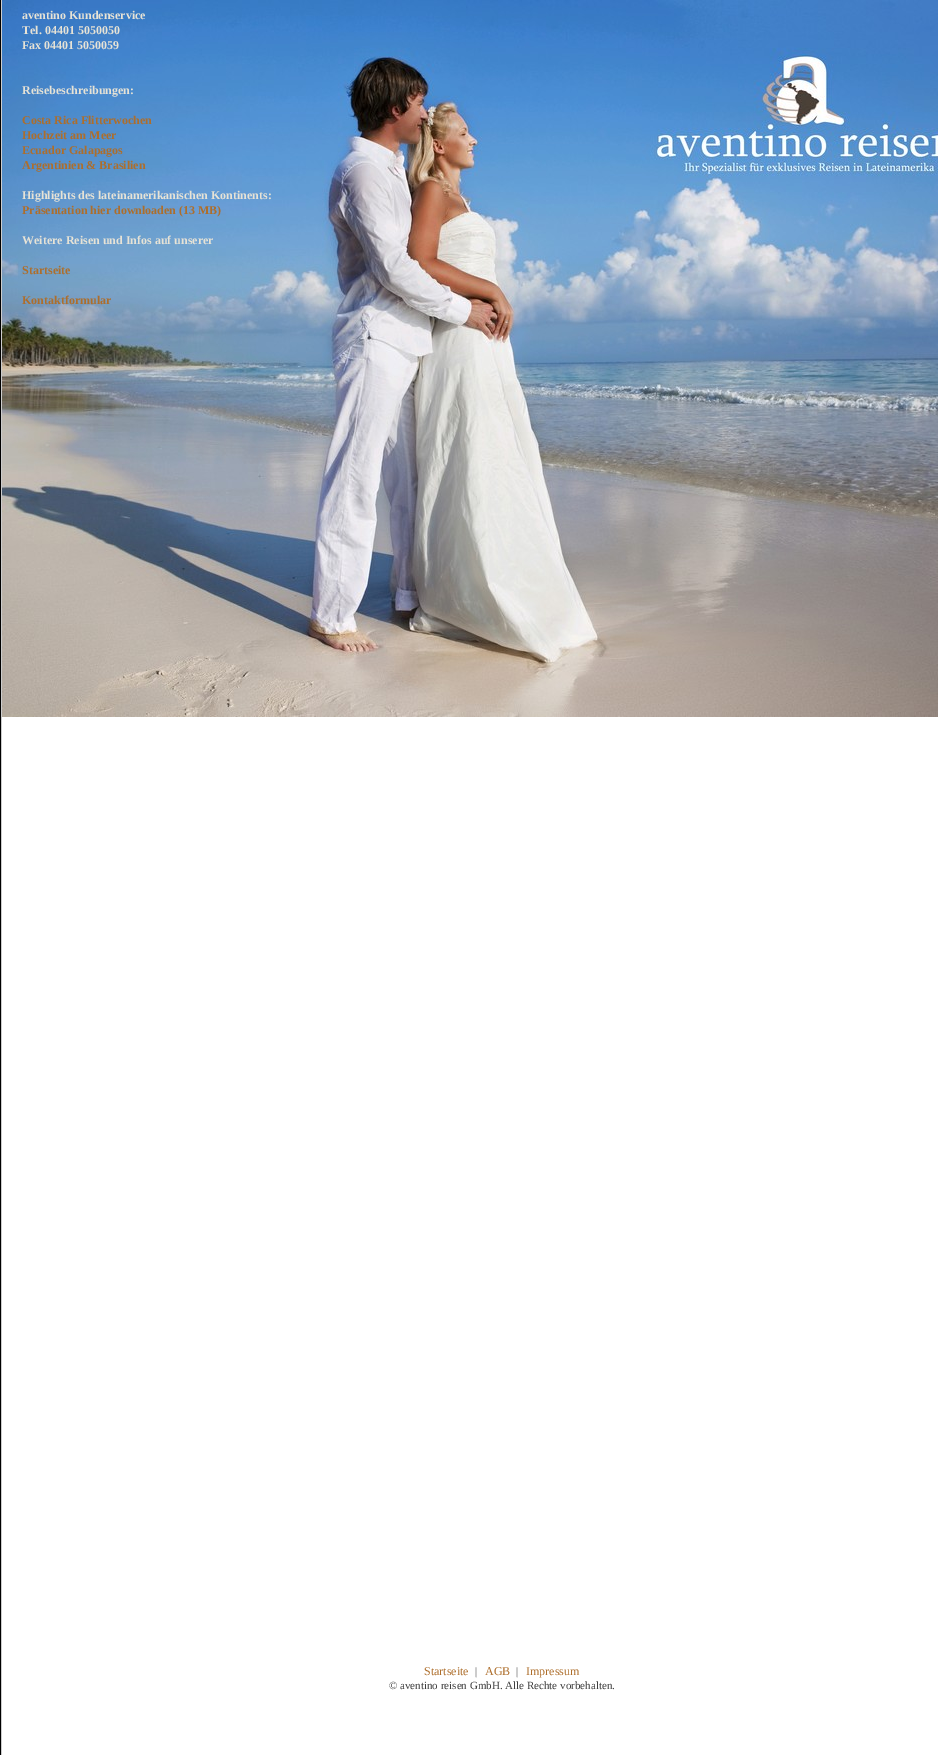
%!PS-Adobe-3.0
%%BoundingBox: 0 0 938 1755
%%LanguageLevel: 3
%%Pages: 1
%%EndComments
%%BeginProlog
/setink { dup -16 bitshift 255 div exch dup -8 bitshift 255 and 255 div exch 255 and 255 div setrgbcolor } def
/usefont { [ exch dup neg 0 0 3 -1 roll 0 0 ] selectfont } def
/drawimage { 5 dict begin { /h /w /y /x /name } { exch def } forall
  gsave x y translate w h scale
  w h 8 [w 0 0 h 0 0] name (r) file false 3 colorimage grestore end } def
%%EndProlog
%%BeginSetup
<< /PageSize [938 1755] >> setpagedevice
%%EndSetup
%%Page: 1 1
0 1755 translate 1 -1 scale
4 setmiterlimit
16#FFFFFF setink
0 0 938 1755 rectfill
16#000000 setink
0 0 1 1755 rectfill
16#CCCCCC setink
1 0 1 1755 rectfill
(img1.raw) 2 0 936 717 drawimage
/LiberationSerif-Bold 12 usefont
16#E7E3D6 setink
[
    [(aventino Kundenservice) 22 19]
    [(Tel. 04401 5050050) 22 34]
    [(Fax 04401 5050059) 22 49]
    [(Reisebeschreibungen:) 22 94]
] { aload pop moveto show } forall
16#AE6E2B setink
[
    [(Costa Rica Flitterwochen) 22 124]
    [(Hochzeit am Meer) 22 139]
    [(Ecuador Galapagos) 22 154]
    [(Argentinien & Brasilien) 22 169]
] { aload pop moveto show } forall
16#E7E3D6 setink
22 199 moveto (Highlights des lateinamerikanischen Kontinents:) show
16#AE6E2B setink
22 214 moveto (Präsentation hier downloaden \(13 MB\)) show
16#E7E3D6 setink
22 244 moveto (Weitere Reisen und Infos auf unserer) show
16#AE6E2B setink
22 274 moveto (Startseite) show
22 304 moveto (Kontaktformular) show
/LiberationSerif-Regular 12 usefont
424 1675 moveto (Startseite) show
/LiberationSerif-Regular 11 usefont
16#3F3F3F setink
475 1675 moveto (|) show
/LiberationSerif-Regular 12 usefont
16#AE6E2B setink
485 1675 moveto (AGB) show
/LiberationSerif-Regular 11 usefont
16#3F3F3F setink
516 1675 moveto (|) show
/LiberationSerif-Regular 12 usefont
16#AE6E2B setink
526 1675 moveto (Impressum) show
/LiberationSerif-Regular 11 usefont
16#3F3F3F setink
389 1689 moveto (© aventino reisen GmbH. Alle Rechte vorbehalten.) show
showpage
%%EOF
